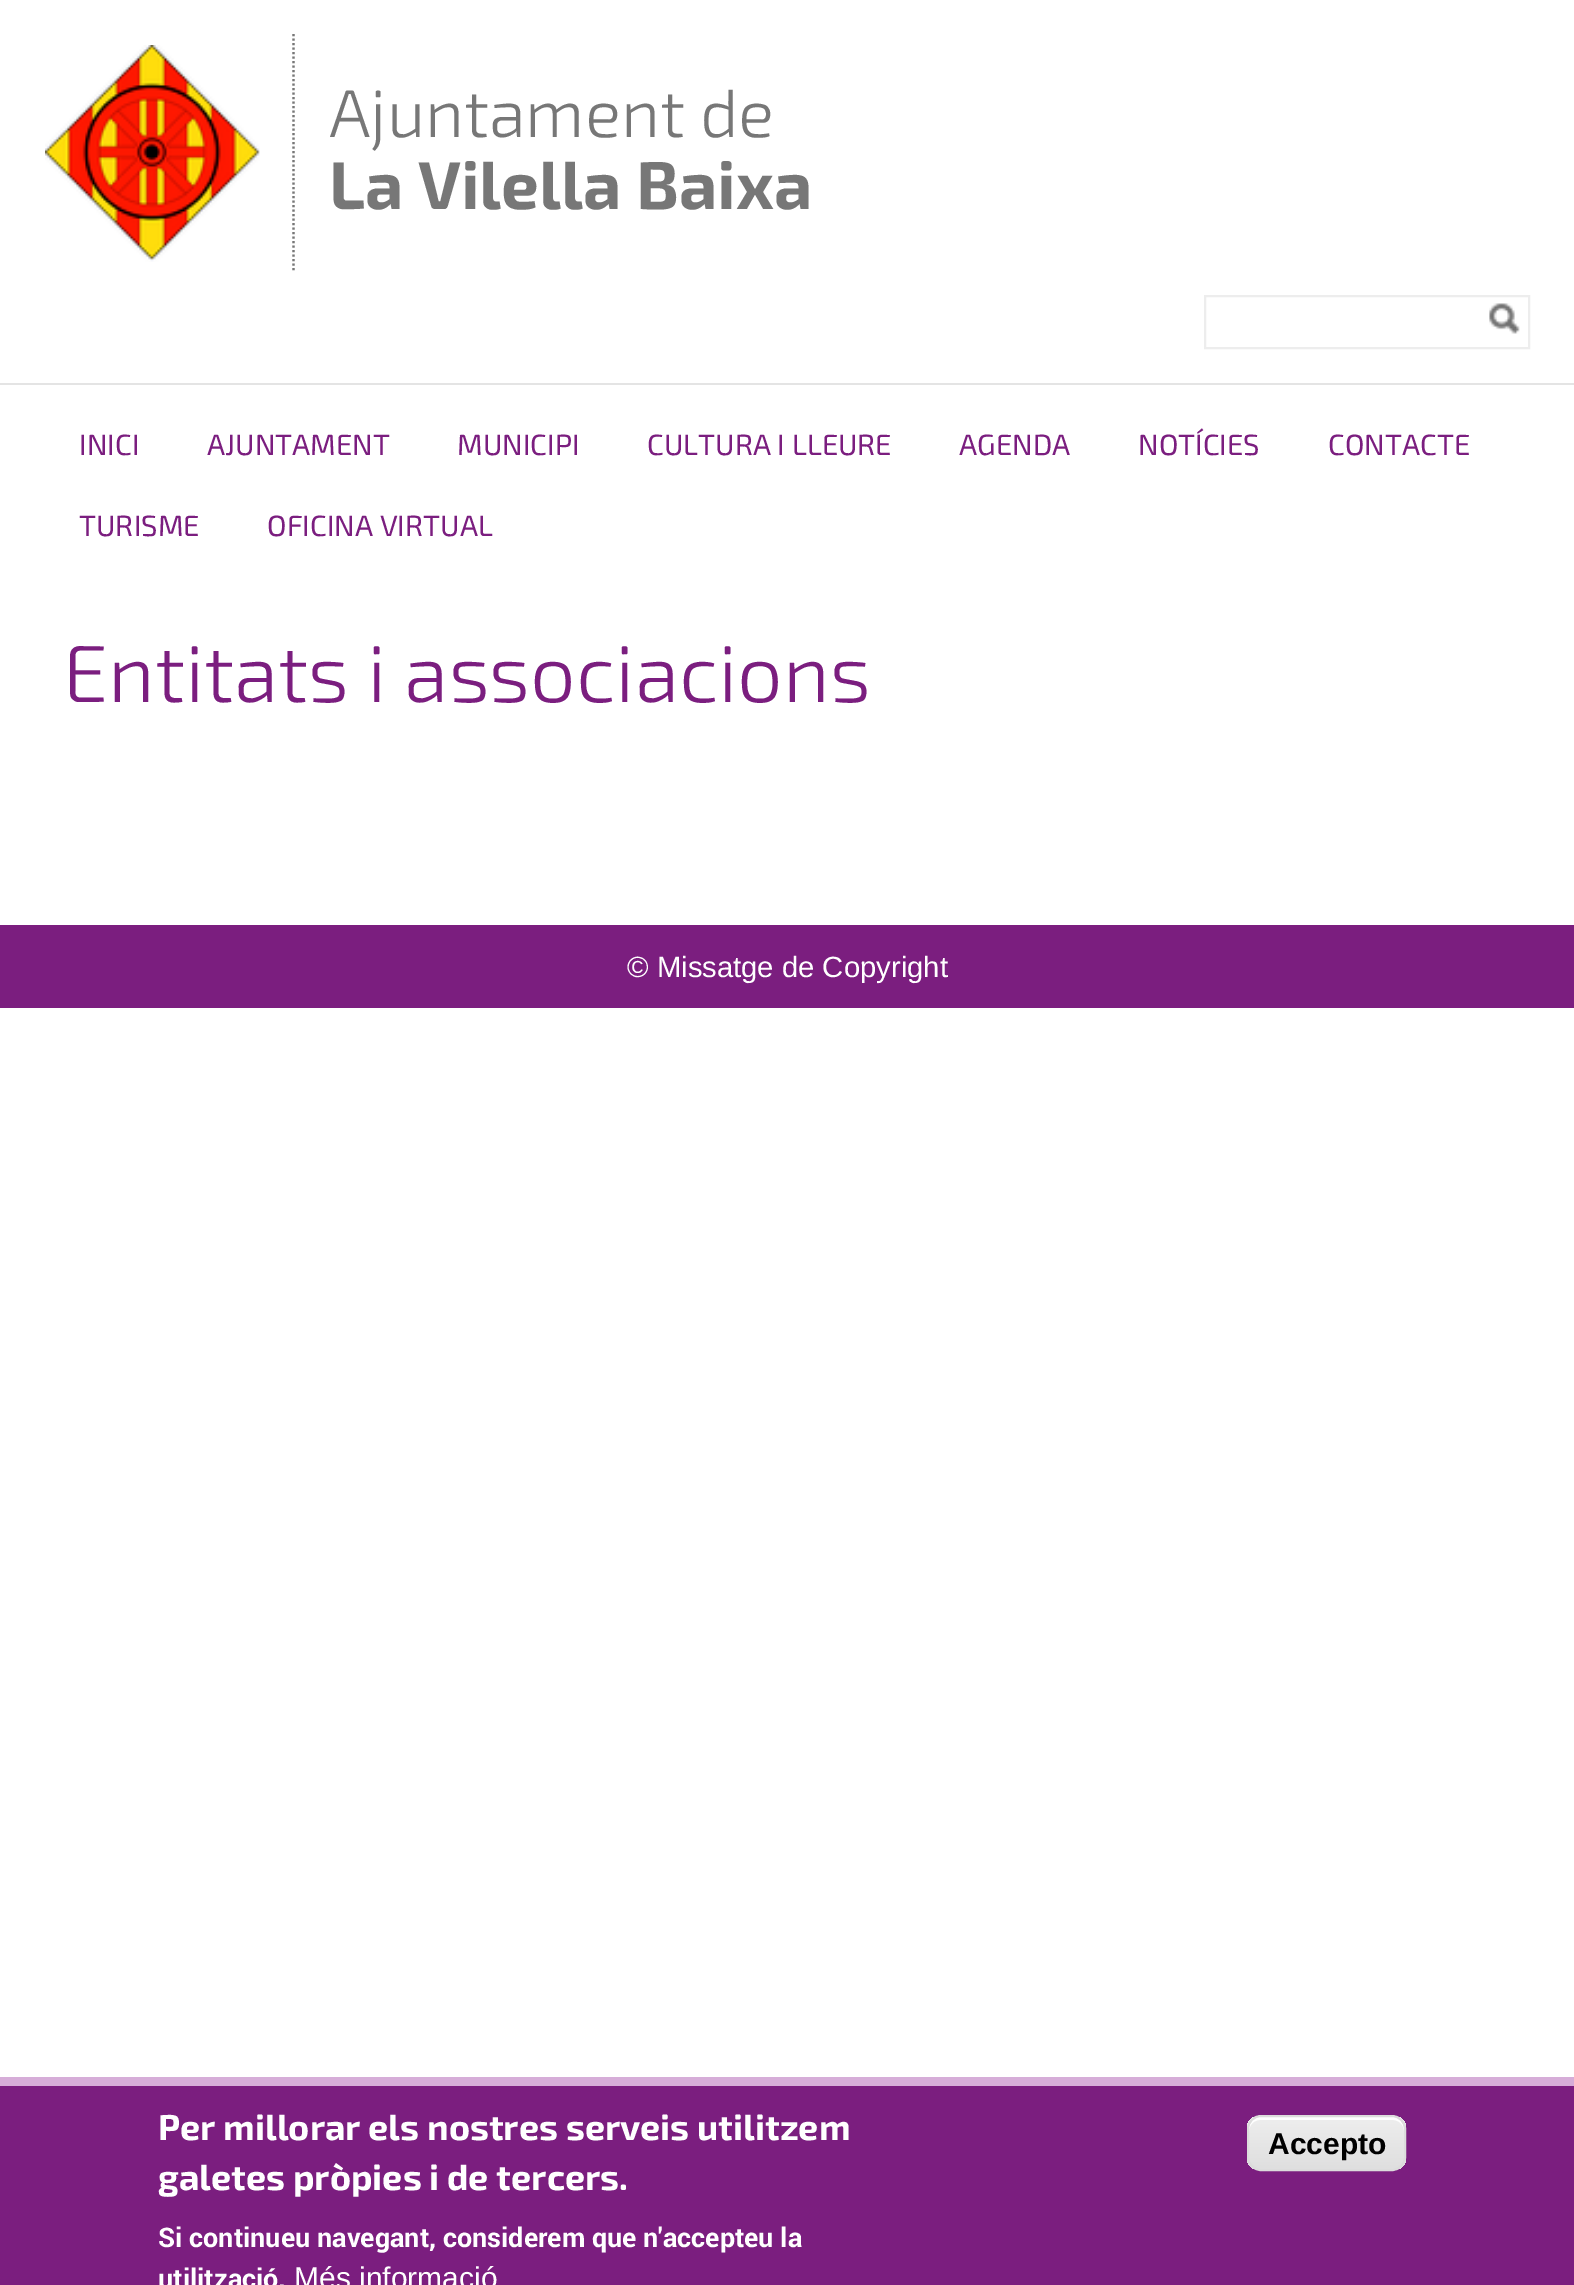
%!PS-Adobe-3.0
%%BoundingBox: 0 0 1574 2285
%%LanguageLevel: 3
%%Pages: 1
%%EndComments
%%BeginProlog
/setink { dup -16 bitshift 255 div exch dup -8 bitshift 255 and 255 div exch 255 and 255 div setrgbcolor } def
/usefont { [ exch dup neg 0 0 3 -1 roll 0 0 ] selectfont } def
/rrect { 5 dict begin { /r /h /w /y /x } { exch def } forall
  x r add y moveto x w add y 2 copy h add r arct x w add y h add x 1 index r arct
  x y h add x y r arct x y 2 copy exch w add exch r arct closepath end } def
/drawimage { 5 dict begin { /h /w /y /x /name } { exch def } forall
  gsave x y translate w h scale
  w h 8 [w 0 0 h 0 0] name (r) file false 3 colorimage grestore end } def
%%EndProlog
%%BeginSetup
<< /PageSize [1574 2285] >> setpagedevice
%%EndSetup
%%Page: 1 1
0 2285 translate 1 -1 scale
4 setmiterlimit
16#FFFFFF setink
0 0 1574 2285 rectfill
(img1.raw) 45 45 215 217 drawimage
16#777777 setink
2.2 setlinewidth
[2.25 2.25] 0 setdash
293.5 34 moveto 293.5 272 lineto stroke
/Exo2-Light 67.5 usefont
329 137 moveto (Ajuntament de) show
/Exo2-Bold 67.5 usefont
329 209 moveto (La Vilella Baixa) show
16#EDEDED setink
2 setlinewidth
[] 0 setdash
1205 296 324 52 rectstroke
(img2.raw) 1489 303 31 31 drawimage
16#E4E4E4 setink
0 383 1574 2 rectfill
/Exo2-Regular 29.25 usefont
16#7B1E7F setink
[
    [(INICI) 79 455]
    [(AJUNTAMENT) 207 455]
    [(MUNICIPI) 457 455]
    [(CULTURA I LLEURE) 647 455]
    [(AGENDA) 959 455]
    [(NOTÍCIES) 1138 455]
    [(CONTACTE) 1328 455]
    [(TURISME) 79 536]
    [(OFICINA VIRTUAL) 267 536]
] { aload pop moveto show } forall
/Exo2-Light 81 usefont
63 702 moveto (Entitats i associacions) show
0 925 1574 83 rectfill
/LiberationSans-Regular 29.25 usefont
16#FFFFFF setink
627 977 moveto (© Missatge de Copyright) show
16#7B1E7F setink
0 2086 1574 199 rectfill
16#D6ADD8 setink
0 2077 1574 9 rectfill
/Exo2-Bold 36 usefont
16#FFFFFF setink
158 2140 moveto (Per millorar els nostres serveis utilitzem) show
158 2190 moveto (galetes pròpies i de tercers.) show
/Roboto-Bold 27 usefont
158 2247 moveto (Si continueu navegant, considerem que n'accepteu la) show
158 2288 moveto (utilització.) show
/LiberationSans-Regular 30 usefont
294 2288 moveto (Més informació) show
gsave
1247 2115 159 56 14 rrect clip newpath
gsave 1247 2117 moveto 1406 2117 lineto 1406 2169 lineto 1247 2169 lineto closepath clip newpath
<< /ShadingType 2 /ColorSpace /DeviceRGB /Coords [1326 2117 1326 2169] /Extend [true true] /Function << /FunctionType 3 /Domain [0 1] /Functions [<< /FunctionType 2 /Domain [0 1] /C0 [0.929 0.929 0.929] /C1 [0.929 0.929 0.929] /N 1 >> << /FunctionType 2 /Domain [0 1] /C0 [0.929 0.929 0.929] /C1 [0.875 0.875 0.875] /N 1 >>] /Bounds [0.05] /Encode [0 1 0 1] >> >> shfill grestore
grestore
1260 2120 moveto 1393 2120 lineto 1399 2120 1404 2125 1404 2131 curveto 1404 2112 1386 2117 1371 2117 curveto 1282 2117 lineto 1267 2117 1249 2112 1249 2131 curveto 1249 2125 1254 2120 1260 2120 curveto closepath fill
16#DCDCDC setink
1248 2116 157 54 13 rrect stroke
/LiberationSans-Bold 30 usefont
16#000000 setink
1268 2154 moveto (Accepto) show
showpage
%%EOF
